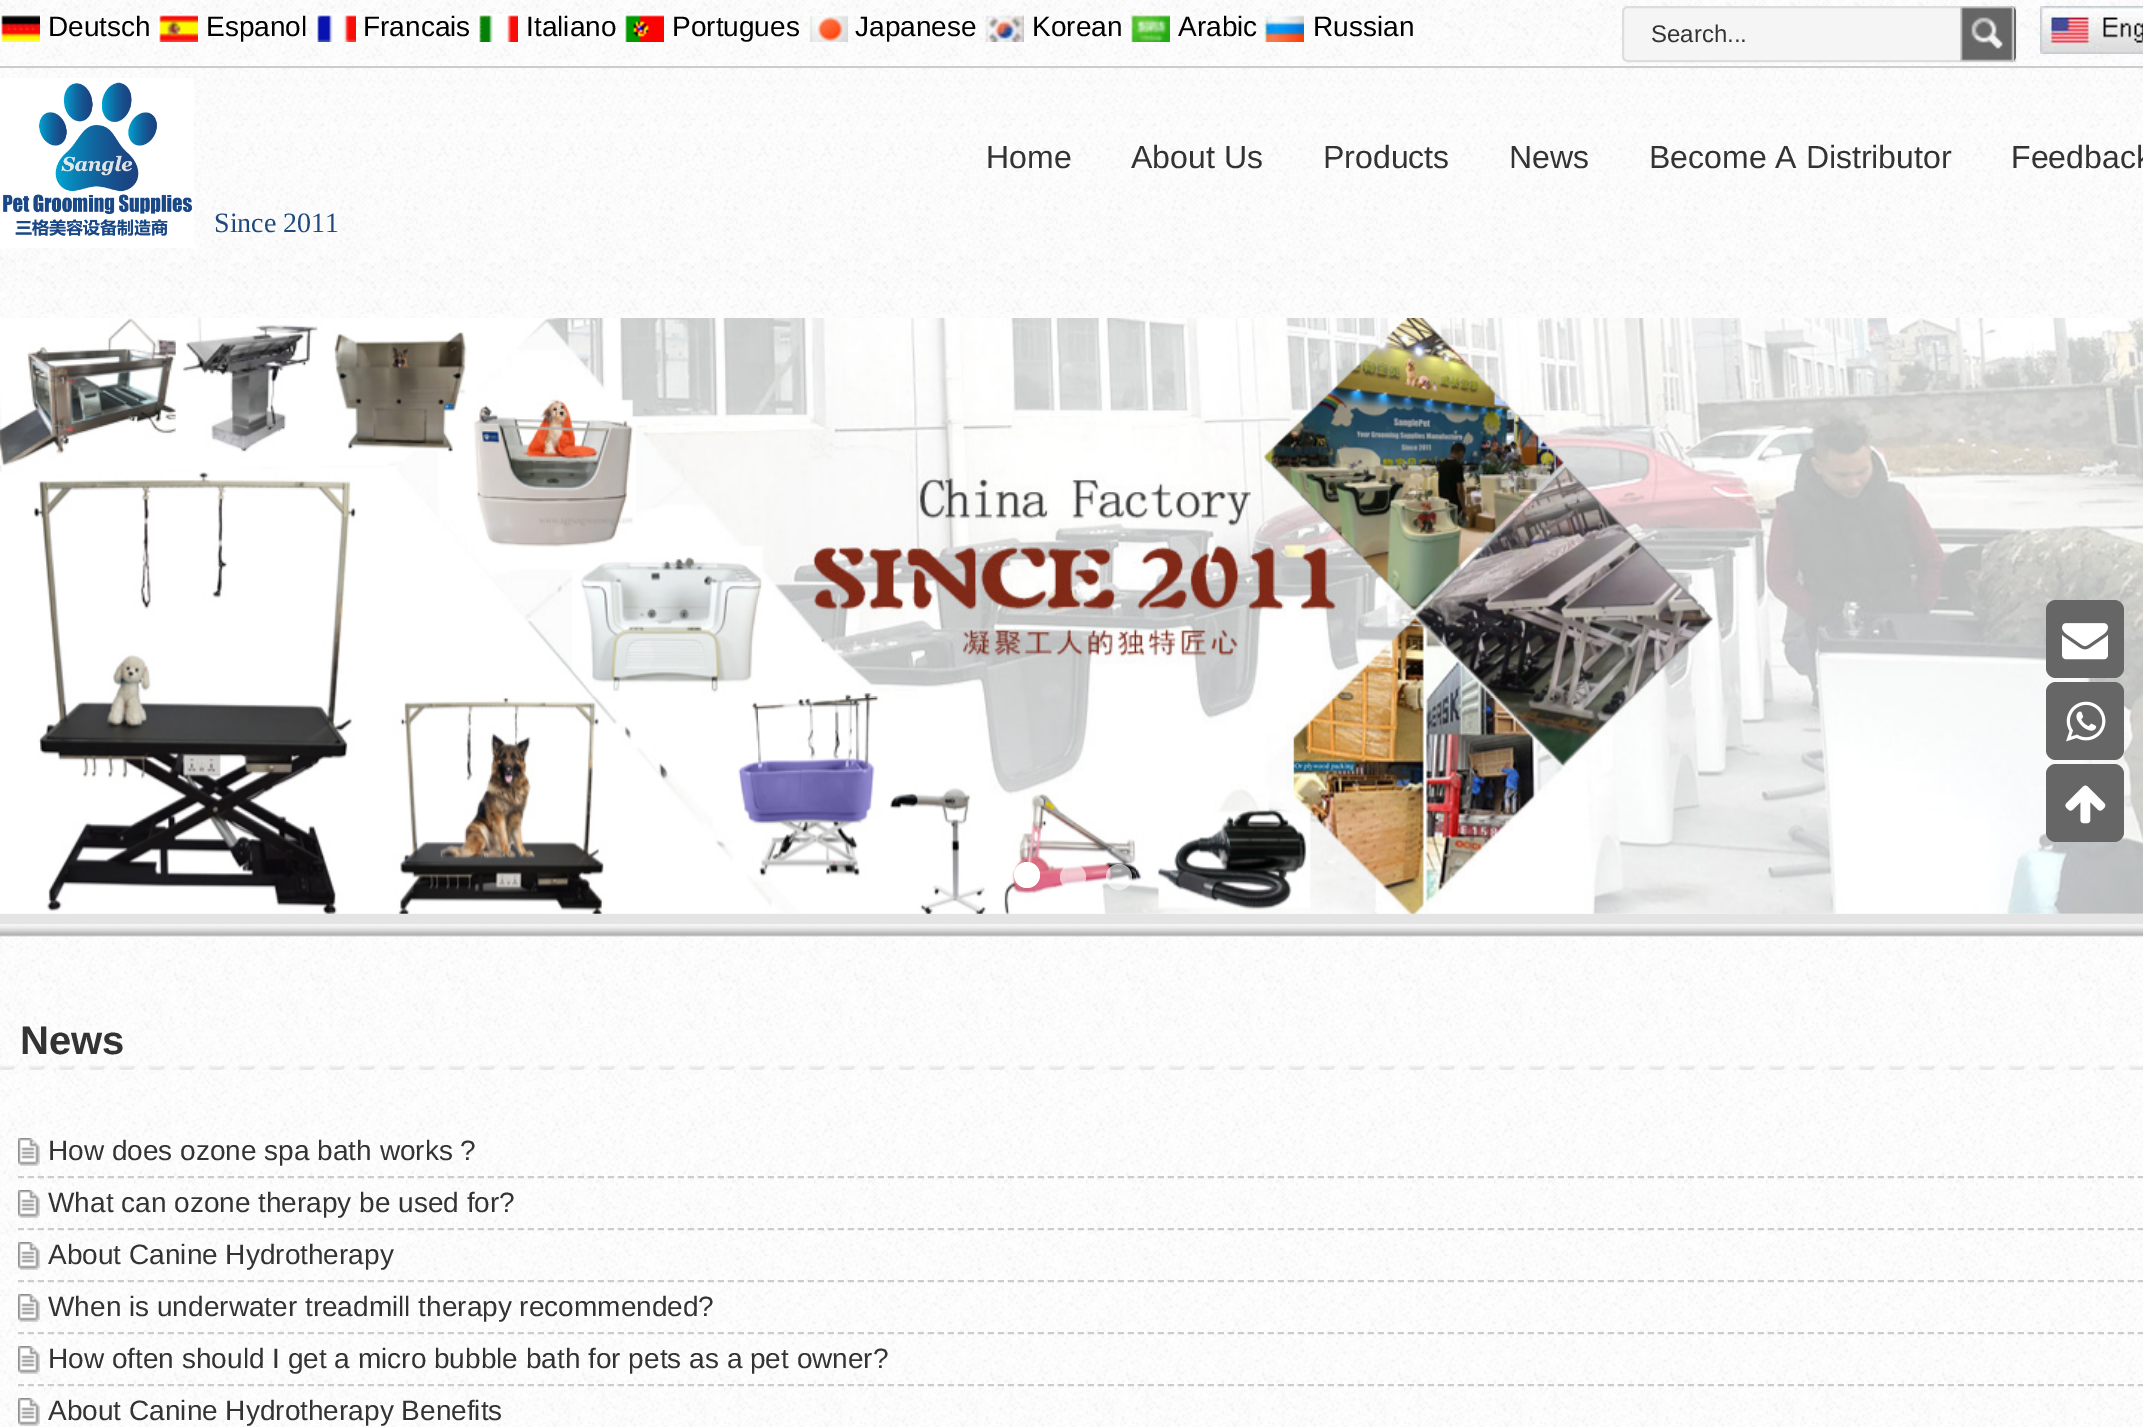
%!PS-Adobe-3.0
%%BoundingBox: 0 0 2143 1427
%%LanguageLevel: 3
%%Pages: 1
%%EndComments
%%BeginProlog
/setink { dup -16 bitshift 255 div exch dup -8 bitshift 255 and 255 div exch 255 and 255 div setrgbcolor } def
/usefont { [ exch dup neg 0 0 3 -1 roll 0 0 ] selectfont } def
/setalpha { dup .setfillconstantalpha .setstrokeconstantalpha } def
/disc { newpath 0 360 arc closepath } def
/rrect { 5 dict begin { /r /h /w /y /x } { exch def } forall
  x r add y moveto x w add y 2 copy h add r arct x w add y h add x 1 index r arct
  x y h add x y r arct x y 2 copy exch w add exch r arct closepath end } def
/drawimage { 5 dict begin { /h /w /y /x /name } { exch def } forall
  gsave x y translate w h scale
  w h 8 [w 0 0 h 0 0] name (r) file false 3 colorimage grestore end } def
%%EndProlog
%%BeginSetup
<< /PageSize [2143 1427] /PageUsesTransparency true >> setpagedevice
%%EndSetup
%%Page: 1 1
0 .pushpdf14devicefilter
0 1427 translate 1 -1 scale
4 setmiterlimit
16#F1F1F1 setink
0 0 2143 1427 rectfill
(img1.raw) 0 0 2143 318 drawimage
16#CCCCCC setink
0 66 2143 2 rectfill
(img2.raw) 0 14 40 28 drawimage
/LiberationSans-Regular 28 usefont
16#000000 setink
48 36 moveto (Deutsch) show
(img3.raw) 158 14 40 28 drawimage
206 36 moveto (Espanol) show
(img4.raw) 316 14 40 28 drawimage
363 36 moveto (Francais) show
(img5.raw) 478 14 40 28 drawimage
526 36 moveto (Italiano) show
(img6.raw) 624 14 40 28 drawimage
672 36 moveto (Portugues) show
(img7.raw) 808 14 40 28 drawimage
855 36 moveto (Japanese) show
(img8.raw) 984 14 40 28 drawimage
1032 36 moveto (Korean) show
(img9.raw) 1130 14 40 28 drawimage
1178 36 moveto (Arabic) show
(img10.raw) 1264 14 40 28 drawimage
1313 36 moveto (Russian) show
16#F5F5F5 setink
1628 7 moveto 2015 7 lineto 2015 61 lineto 1628 61 lineto 1625 61 1623 59 1623 56 curveto 1623 12 lineto 1623 9 1625 7 1628 7 curveto closepath gsave fill grestore
16#DDDDDD setink
2 setlinewidth
stroke
/LiberationSans-Regular 24 usefont
16#333333 setink
1651 42 moveto (Search...) show
16#666666 setink
1960 6 moveto 2010 6 lineto 2013.5 6 2016 8.5 2016 12 curveto 2016 56 lineto 2016 59.5 2013.5 62 2010 62 curveto 1960 62 lineto closepath fill
(img11.raw) 1960 6 54 56 drawimage
(img12.raw) 2040 6 103 48 drawimage
(img13.raw) 0 78 194 170 drawimage
/LiberationSans-Regular 32 usefont
16#333333 setink
[
    [(Home) 986 168]
    [(About Us) 1131 168]
    [(Products) 1323 168]
    [(News) 1509 168]
    [(Become A Distributor) 1649 168]
    [(Feedback) 2011 168]
] { aload pop moveto show } forall
/LiberationSerif-Regular 28 usefont
16#1F497D setink
214 232 moveto (Since 2011) show
16#E4E4E4 setink
0 914 2143 10 rectfill
(img14.raw) 0 318 2143 596 drawimage
16#FFFFFF setink
1027 875 13 disc fill
0.6 setalpha
1073 877 13 disc fill
1119 877 13 disc fill
1 setalpha
16#666666 setink
2046 600 78 78 10 rrect fill
(img15.raw) 2062 623 46 37 drawimage
2046 682 78 78 10 rrect fill
(img16.raw) 2066 701 40 41 drawimage
2046 764 78 78 10 rrect fill
(img17.raw) 2065 785 41 39 drawimage
(img18.raw) 0 940 2143 487 drawimage
(img19.raw) 0 924 2143 16 drawimage
(img20.raw) 0 1030 2143 40 drawimage
/LiberationSans-Bold 40 usefont
16#333333 setink
20 1054 moveto (News) show
16#CCCCCC setink
[6 4] 0 setdash
18 1177 moveto 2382 1177 lineto stroke
(img21.raw) 18 1138 22 28 drawimage
/LiberationSans-Regular 28 usefont
16#333333 setink
48 1160 moveto (How does ozone spa bath works ?) show
16#CCCCCC setink
18 1229 moveto 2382 1229 lineto stroke
(img21.raw) 18 1190 22 28 drawimage
16#333333 setink
48 1212 moveto (What can ozone therapy be used for?) show
16#CCCCCC setink
18 1281 moveto 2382 1281 lineto stroke
(img21.raw) 18 1242 22 28 drawimage
16#333333 setink
48 1264 moveto (About Canine Hydrotherapy) show
16#CCCCCC setink
18 1333 moveto 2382 1333 lineto stroke
(img21.raw) 18 1294 22 28 drawimage
16#333333 setink
48 1316 moveto (When is underwater treadmill therapy recommended?) show
16#CCCCCC setink
18 1385 moveto 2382 1385 lineto stroke
(img21.raw) 18 1346 22 28 drawimage
16#333333 setink
48 1368 moveto (How often should I get a micro bubble bath for pets as a pet owner?) show
(img21.raw) 18 1398 22 28 drawimage
48 1420 moveto (About Canine Hydrotherapy Benefits) show
.poppdf14devicefilter showpage
%%EOF
